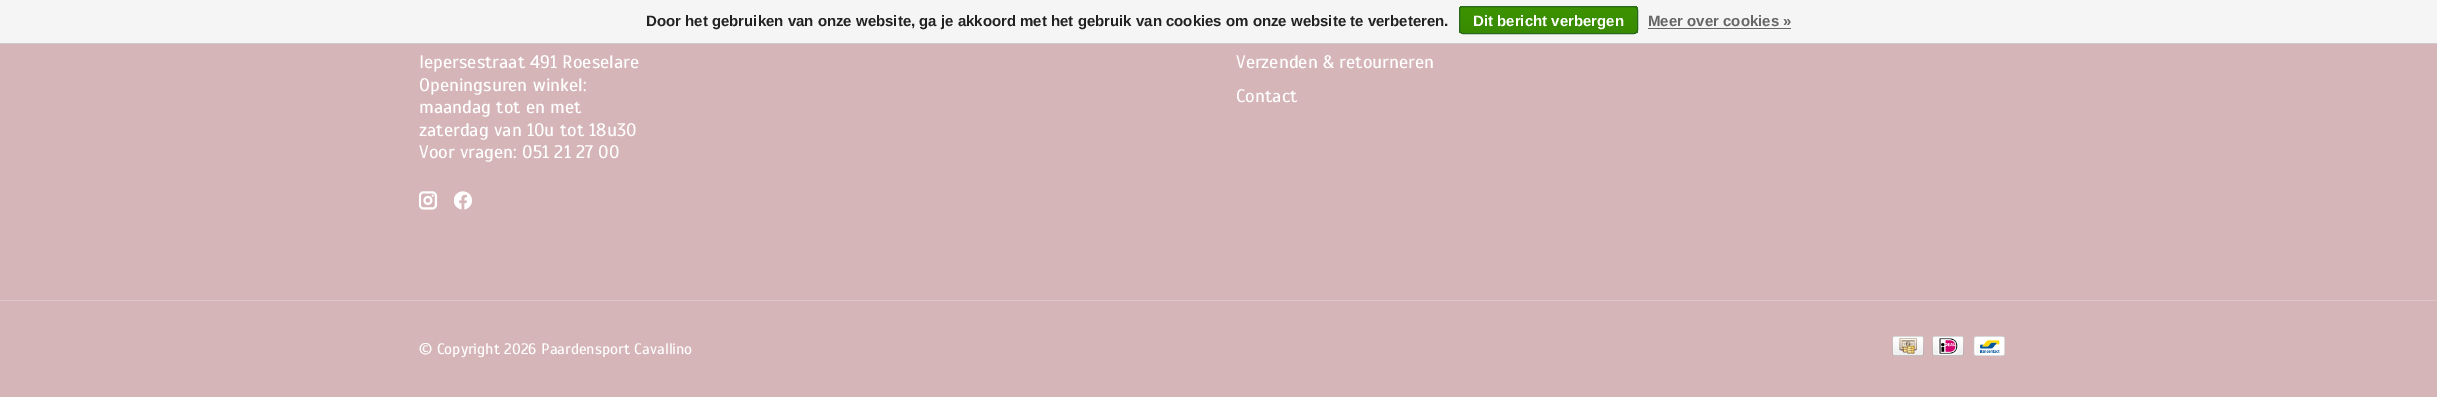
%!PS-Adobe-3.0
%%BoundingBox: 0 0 2437 397
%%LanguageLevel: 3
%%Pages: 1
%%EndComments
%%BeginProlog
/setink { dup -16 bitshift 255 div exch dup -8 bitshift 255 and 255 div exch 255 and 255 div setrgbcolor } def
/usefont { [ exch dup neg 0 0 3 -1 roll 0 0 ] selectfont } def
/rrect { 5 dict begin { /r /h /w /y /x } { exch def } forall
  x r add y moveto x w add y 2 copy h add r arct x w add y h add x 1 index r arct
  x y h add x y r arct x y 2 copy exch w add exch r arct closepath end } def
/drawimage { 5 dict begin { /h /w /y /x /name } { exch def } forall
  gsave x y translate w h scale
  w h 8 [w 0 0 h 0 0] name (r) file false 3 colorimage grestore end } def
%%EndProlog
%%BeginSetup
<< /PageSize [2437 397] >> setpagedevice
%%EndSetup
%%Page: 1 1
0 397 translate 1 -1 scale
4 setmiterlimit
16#D5B5B8 setink
0 0 2437 397 rectfill
16#F5F5F5 setink
0 0 2437 43 rectfill
16#CCCCCC setink
0 43 2437 1 rectfill
/LiberationSans-Bold 15 usefont
16#222222 setink
646 26 moveto (Door het gebruiken van onze website, ga je akkoord met het gebruik van cookies om onze website te verbeteren.) show
gsave
1459 6 179 28 4 rrect clip newpath
gsave 1459 6 moveto 1638 6 lineto 1638 8 lineto 1459 8 lineto closepath clip newpath
<< /ShadingType 2 /ColorSpace /DeviceRGB /Coords [1548 -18 1548 7.5] /Extend [true true] /Function << /FunctionType 2 /Domain [0 1] /C0 [0.235 0.576 0] /C1 [0.224 0.541 0] /N 1 >> >> shfill grestore
gsave 1459 8 moveto 1638 8 lineto 1638 33 lineto 1459 33 lineto closepath clip newpath
<< /ShadingType 2 /ColorSpace /DeviceRGB /Coords [1548 7.5 1548 33] /Extend [true true] /Function << /FunctionType 2 /Domain [0 1] /C0 [0.235 0.576 0] /C1 [0.224 0.541 0] /N 1 >> >> shfill grestore
grestore
16#29691D setink
1459.5 6.5 178 27 3.5 rrect stroke
16#FFFFFF setink
1473 26 moveto (Dit bericht verbergen) show
16#666666 setink
1648 26 moveto (Meer over cookies ») show
1648 28 143 1 rectfill
/Scada-Regular 18.25 usefont
16#FFFFFF setink
[
    [(Iepersestraat 491 Roeselare) 419 68]
    [(Openingsuren winkel:) 419 91]
    [(maandag tot en met) 419 113]
    [(zaterdag van 10u tot 18u30) 419 136]
    [(Voor vragen: 051 21 27 00) 419 158]
] { aload pop moveto show } forall
(img1.raw) 419 191 19 19 drawimage
(img2.raw) 454 191 18 19 drawimage
1236 68 moveto (Verzenden & retourneren) show
1236 102 moveto (Contact) show
16#DDC4C6 setink
0 300 2437 1 rectfill
/Scada-Regular 15.25 usefont
16#FFFFFF setink
419 354 moveto (© Copyright 2026 Paardensport Cavallino) show
(img3.raw) 1892 336 32 20 drawimage
(img4.raw) 1932 336 32 20 drawimage
(img5.raw) 1973 336 32 20 drawimage
showpage
%%EOF
